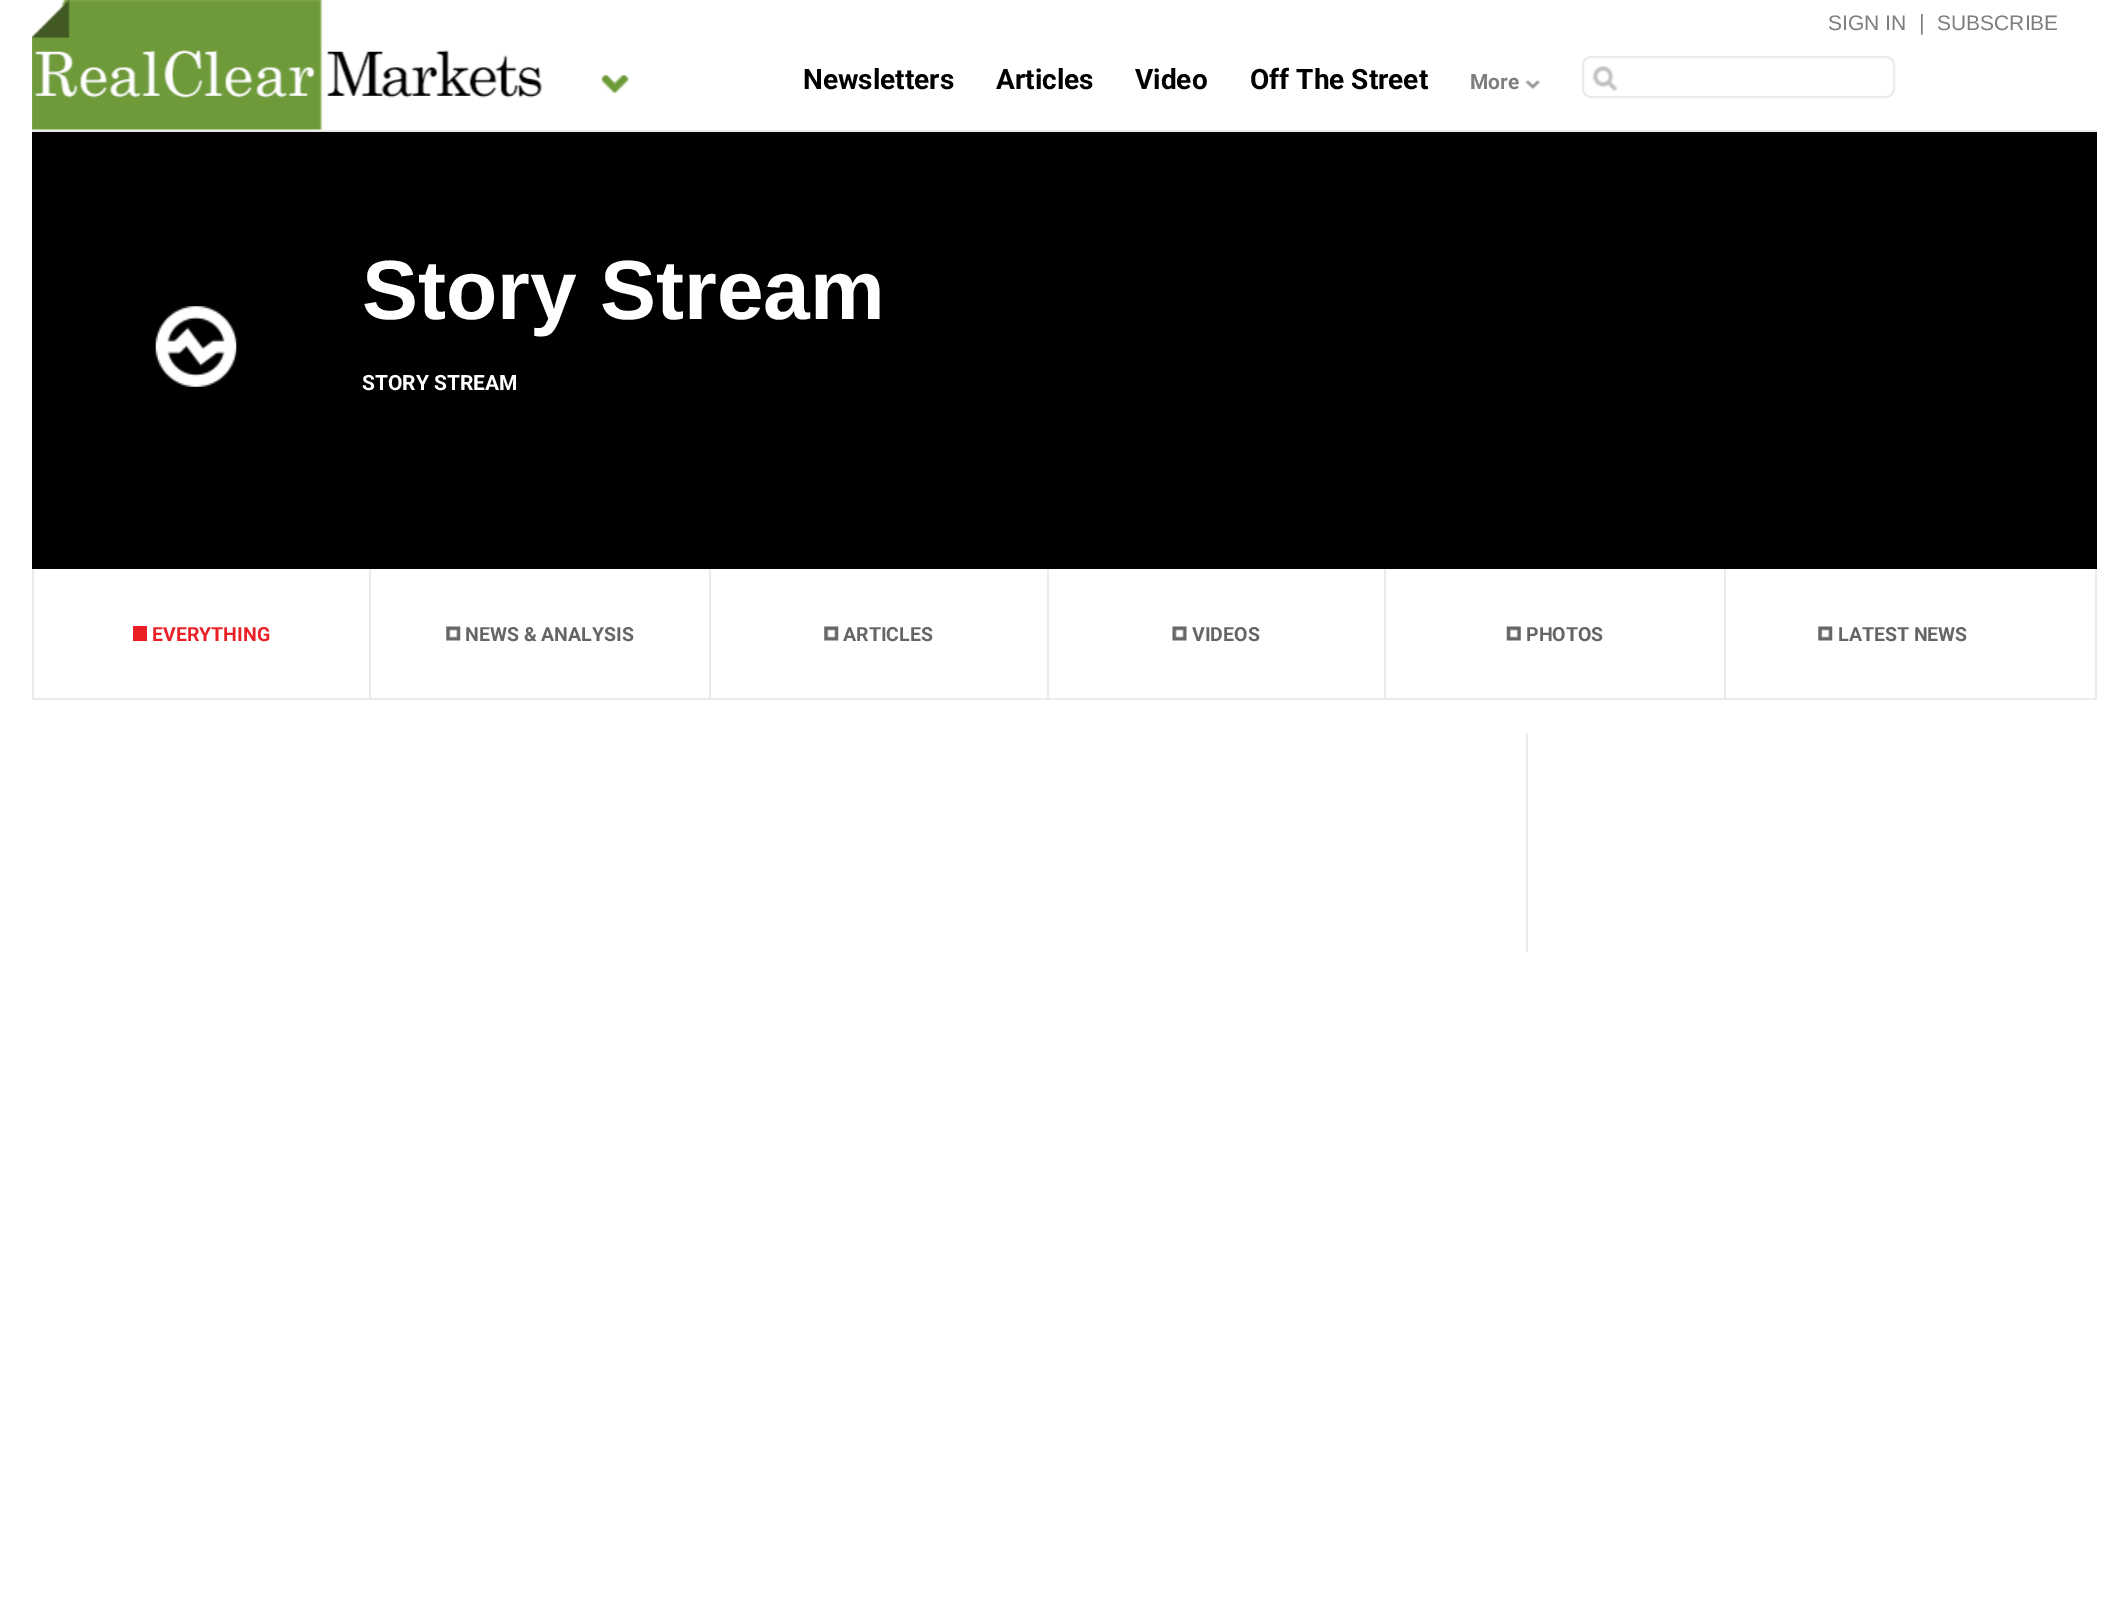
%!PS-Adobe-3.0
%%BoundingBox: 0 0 2127 1620
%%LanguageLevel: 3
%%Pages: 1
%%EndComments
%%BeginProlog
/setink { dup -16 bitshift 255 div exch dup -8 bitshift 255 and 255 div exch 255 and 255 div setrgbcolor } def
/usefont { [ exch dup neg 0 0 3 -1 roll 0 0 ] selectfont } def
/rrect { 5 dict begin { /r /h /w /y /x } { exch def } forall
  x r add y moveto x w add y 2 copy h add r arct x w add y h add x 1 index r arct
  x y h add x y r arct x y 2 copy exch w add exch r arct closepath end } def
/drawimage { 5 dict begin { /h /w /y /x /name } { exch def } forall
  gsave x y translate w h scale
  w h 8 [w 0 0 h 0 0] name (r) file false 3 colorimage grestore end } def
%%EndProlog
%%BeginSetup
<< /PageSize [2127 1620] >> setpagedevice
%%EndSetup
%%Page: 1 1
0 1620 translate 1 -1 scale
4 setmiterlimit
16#FFFFFF setink
0 0 2127 1620 rectfill
16#EBEBEB setink
32 130 2065 2 rectfill
(img1.raw) 32 0 511 130 drawimage
(img2.raw) 601 75 28 18 drawimage
/LiberationSans-Regular 21 usefont
16#7E7E7E setink
1828 30 moveto (SIGN IN) show
/LiberationSans-Regular 22 usefont
1919 30 moveto (|) show
/LiberationSans-Regular 21 usefont
1937 30 moveto (SUBSCRIBE) show
/Roboto-Bold 28 usefont
16#000000 setink
[
    [(Newsletters) 803 89]
    [(Articles) 996 89]
    [(Video) 1135 89]
    [(Off The Street) 1250 89]
] { aload pop moveto show } forall
/Roboto-Bold 21 usefont
16#7E7E7E setink
1470 89 moveto (More) show
(img3.raw) 1525 80 16 9 drawimage
(img4.raw) 1592 66 26 25 drawimage
16#EBEBEB setink
2 setlinewidth
1583 57 311 40 8 rrect stroke
16#000000 setink
32 132 2065 437 rectfill
(img5.raw) 155 306 82 81 drawimage
/LiberationSans-Bold 84 usefont
16#FFFFFF setink
362 319 moveto (Story Stream) show
/Roboto-Bold 21 usefont
362 390 moveto (STORY STREAM) show
[
    [2095 569 2 131 16#EBEBEB]
    [32 698 2065 2 16#EBEBEB]
    [32 569 2 131 16#EBEBEB]
    [133 626 14 15 16#EA1F26]
] { aload pop setink rectfill } forall
/Roboto-Bold 19.5 usefont
16#EB2026 setink
152 641 moveto (EVERYTHING) show
16#EBEBEB setink
369 569 2 131 rectfill
(img6.raw) 446 626 15 15 drawimage
16#656565 setink
465 641 moveto (NEWS & ANALYSIS) show
16#EBEBEB setink
709 569 2 131 rectfill
(img6.raw) 824 626 15 15 drawimage
16#656565 setink
843 641 moveto (ARTICLES) show
16#EBEBEB setink
1047 569 2 131 rectfill
(img7.raw) 1172 626 15 15 drawimage
16#656565 setink
1192 641 moveto (VIDEOS) show
16#EBEBEB setink
1384 569 2 131 rectfill
(img8.raw) 1506 626 15 15 drawimage
16#656565 setink
1526 641 moveto (PHOTOS) show
16#EBEBEB setink
1724 569 2 131 rectfill
(img6.raw) 1818 626 15 15 drawimage
16#656565 setink
1838 641 moveto (LATEST NEWS) show
16#EBEBEB setink
1526 733 2 219 rectfill
showpage
%%EOF
